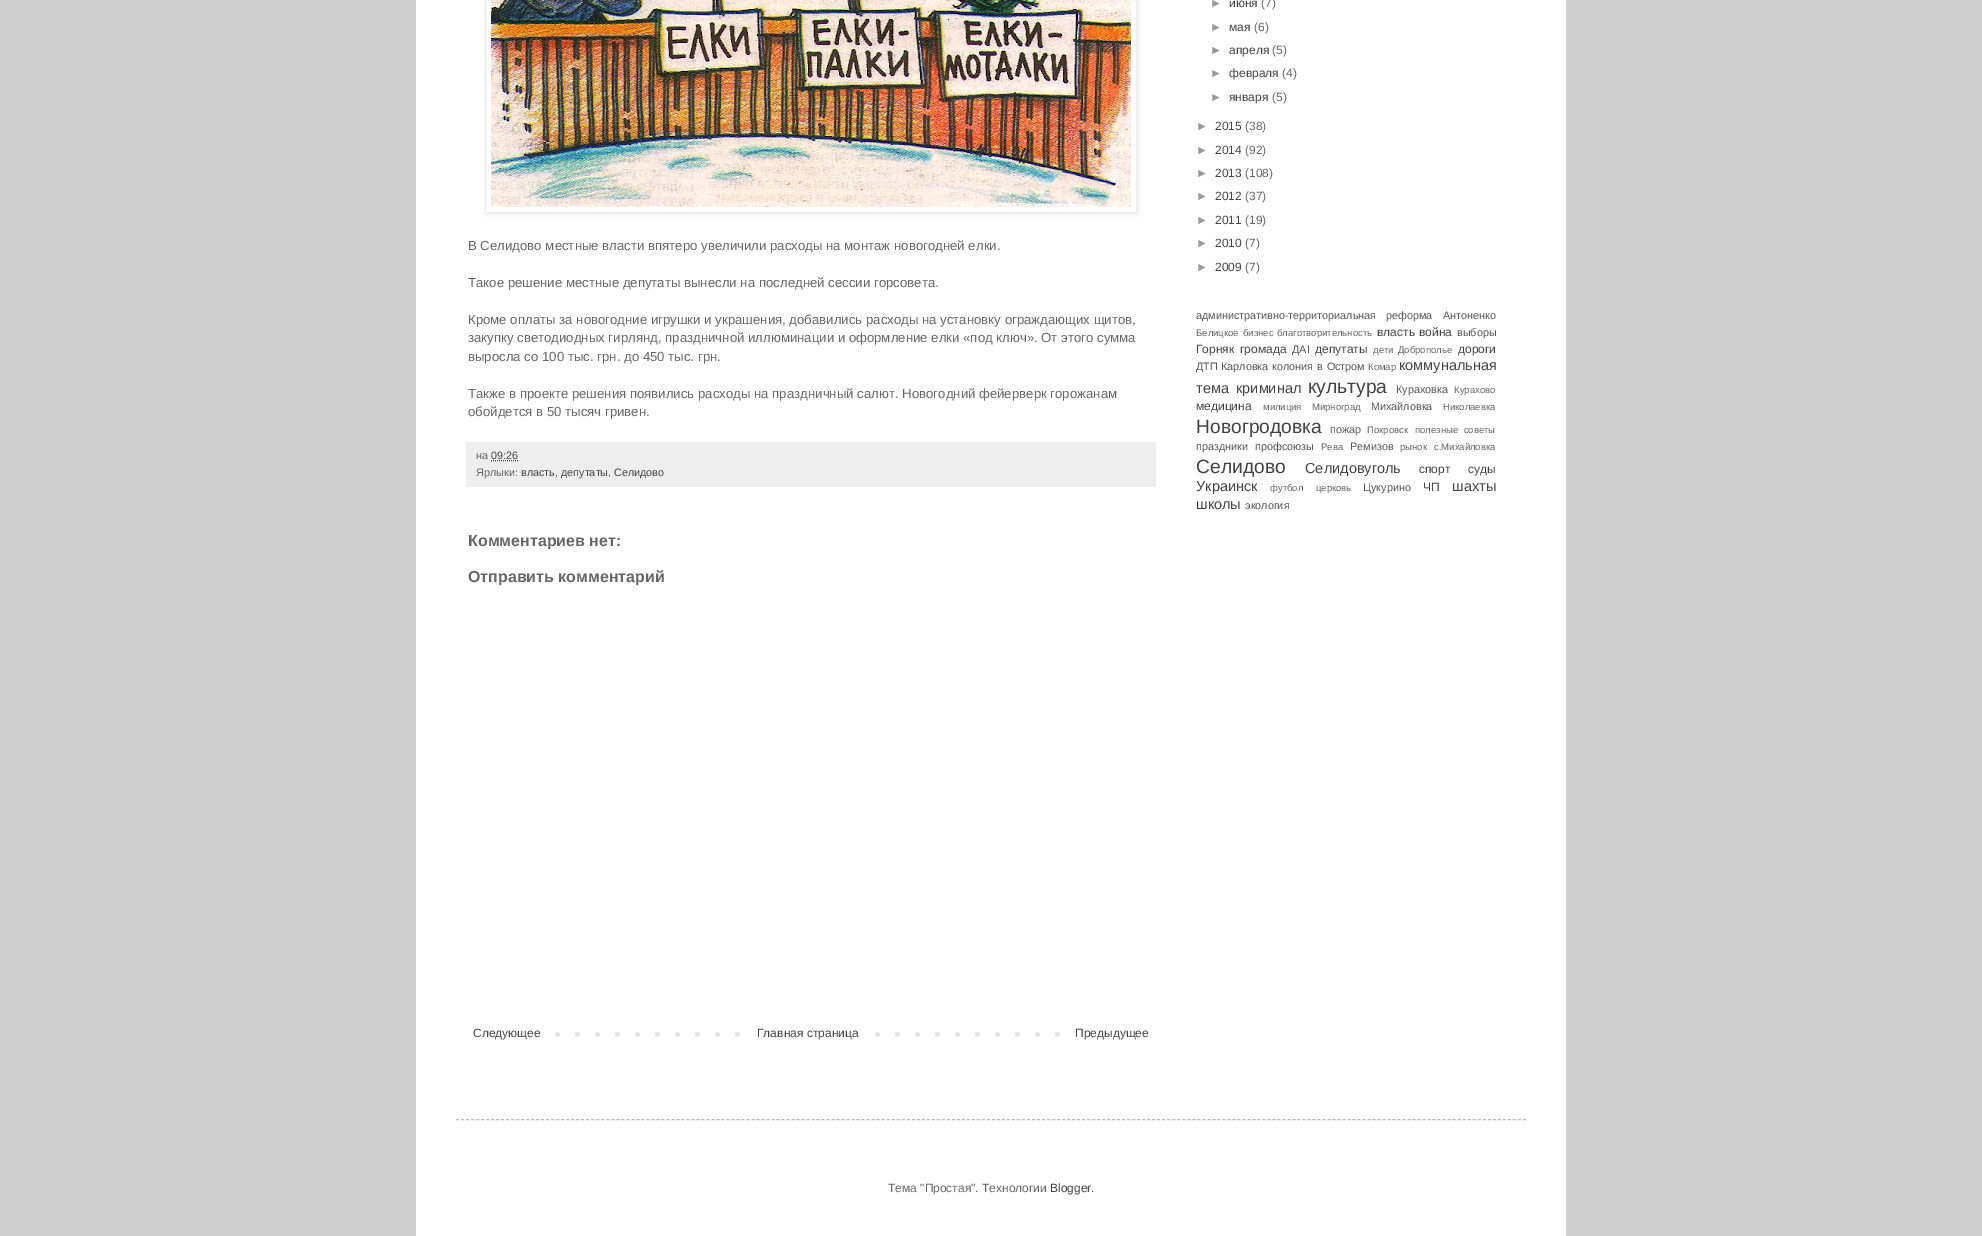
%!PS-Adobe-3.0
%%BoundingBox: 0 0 1982 1236
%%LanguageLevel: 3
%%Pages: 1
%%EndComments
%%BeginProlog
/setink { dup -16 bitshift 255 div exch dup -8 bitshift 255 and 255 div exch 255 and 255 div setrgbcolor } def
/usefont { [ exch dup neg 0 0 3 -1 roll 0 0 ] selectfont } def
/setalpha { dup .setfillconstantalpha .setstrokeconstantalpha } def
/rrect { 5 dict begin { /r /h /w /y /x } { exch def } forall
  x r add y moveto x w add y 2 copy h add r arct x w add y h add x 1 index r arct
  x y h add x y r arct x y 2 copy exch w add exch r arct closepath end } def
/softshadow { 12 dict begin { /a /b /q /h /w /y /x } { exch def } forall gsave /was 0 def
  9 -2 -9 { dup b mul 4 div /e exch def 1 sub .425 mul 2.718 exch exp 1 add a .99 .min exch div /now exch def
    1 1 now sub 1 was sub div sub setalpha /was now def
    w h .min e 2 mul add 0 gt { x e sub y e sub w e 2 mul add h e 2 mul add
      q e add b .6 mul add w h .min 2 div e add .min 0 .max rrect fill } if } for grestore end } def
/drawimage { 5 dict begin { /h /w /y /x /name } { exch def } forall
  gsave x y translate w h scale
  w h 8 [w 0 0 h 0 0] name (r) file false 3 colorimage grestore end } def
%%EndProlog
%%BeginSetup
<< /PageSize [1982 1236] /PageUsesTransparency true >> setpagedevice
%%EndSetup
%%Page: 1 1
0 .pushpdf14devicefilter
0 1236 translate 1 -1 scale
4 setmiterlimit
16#CECECE setink
0 0 1982 1236 rectfill
16#FFFFFF setink
416 0 1150 1236 rectfill
gsave
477 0 moveto 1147 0 lineto 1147 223 lineto 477 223 lineto closepath 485 -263 moveto 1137 -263 lineto 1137 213 lineto 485 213 lineto closepath eoclip newpath
16#000000 setink
486 -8 652 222 0 2.5 0.1 softshadow
grestore
16#EEEEEE setink
485.5 -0.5 651 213 rectstroke
(img1.raw) 491 0 640 207 drawimage
/LiberationSans-Regular 13.2 usefont
16#666666 setink
[
    [(В Селидово местные власти впятеро увеличили расходы на монтаж новогодней елки.) 468 250]
    [(Такое решение местные депутаты вынесли на последней сессии горсовета.) 468 287]
    [(Кроме оплаты за новогодние игрушки и украшения, добавились расходы на установку ограждающих щитов,) 468 324]
    [(закупку светодиодных гирлянд, праздничной иллюминации и оформление елки «под ключ». От этого сумма) 468 342]
    [(выросла со 100 тыс. грн. до 450 тыс. грн.) 468 361]
    [(Также в проекте решения появились расходы на праздничный салют. Новогодний фейерверк горожанам) 468 398]
    [(обойдется в 50 тысяч гривен.) 468 416]
] { aload pop moveto show } forall
16#EEEEEE setink
466 442 690 45 rectfill
/LiberationSans-Regular 10.8 usefont
16#666666 setink
476 459 moveto (на) show
16#444444 setink
491 459 moveto (09:26) show
[1 1] 0 setdash
491 460.5 moveto 518 460.5 lineto stroke
16#666666 setink
476 476 moveto (Ярлыки:) show
16#444444 setink
521 476 moveto (власть) show
16#666666 setink
555 476 moveto (,) show
16#444444 setink
561 476 moveto (депутаты) show
16#666666 setink
608 476 moveto (,) show
16#444444 setink
614 476 moveto (Селидово) show
/LiberationSans-Bold 16 usefont
16#666666 setink
468 546 moveto (Комментариев нет:) show
468 582 moveto (Отправить комментарий) show
(img2.raw) 555 1032 505 5 drawimage
/LiberationSans-Regular 12 usefont
16#444444 setink
473 1037 moveto (Следующее) show
16#FFFFFF setink
755 1032 106 5 rectfill
16#444444 setink
757 1037 moveto (Главная страница) show
1075 1037 moveto (Предыдущее) show
16#999999 setink
1210 7 moveto (►) show
16#444444 setink
1229 7 moveto (июня) show
16#666666 setink
1261 7 moveto (\(7\)) show
16#999999 setink
1210 31 moveto (►) show
16#444444 setink
1229 31 moveto (мая) show
16#666666 setink
1254 31 moveto (\(6\)) show
16#999999 setink
1210 54 moveto (►) show
16#444444 setink
1229 54 moveto (апреля) show
16#666666 setink
1272 54 moveto (\(5\)) show
16#999999 setink
1210 77 moveto (►) show
16#444444 setink
1229 77 moveto (февраля) show
16#666666 setink
1282 77 moveto (\(4\)) show
16#999999 setink
1210 101 moveto (►) show
16#444444 setink
1229 101 moveto (января) show
16#666666 setink
1272 101 moveto (\(5\)) show
16#999999 setink
1196 130 moveto (►) show
16#444444 setink
1215 130 moveto (2015) show
16#666666 setink
1245 130 moveto (\(38\)) show
16#999999 setink
1196 154 moveto (►) show
16#444444 setink
1215 154 moveto (2014) show
16#666666 setink
1245 154 moveto (\(92\)) show
16#999999 setink
1196 177 moveto (►) show
16#444444 setink
1215 177 moveto (2013) show
16#666666 setink
1245 177 moveto (\(108\)) show
16#999999 setink
1196 200 moveto (►) show
16#444444 setink
1215 200 moveto (2012) show
16#666666 setink
1245 200 moveto (\(37\)) show
16#999999 setink
1196 224 moveto (►) show
16#444444 setink
1215 224 moveto (2011) show
16#666666 setink
1245 224 moveto (\(19\)) show
16#999999 setink
1196 247 moveto (►) show
16#444444 setink
1215 247 moveto (2010) show
16#666666 setink
1245 247 moveto (\(7\)) show
16#999999 setink
1196 271 moveto (►) show
16#444444 setink
1215 271 moveto (2009) show
16#666666 setink
1245 271 moveto (\(7\)) show
/LiberationSans-Regular 10.8 usefont
16#575757 setink
1196 319 moveto 7 0 32 (административно-территориальная реформа) widthshow
1443 319 moveto (Антоненко) show
/LiberationSans-Regular 9.5 usefont
16#666666 setink
[
    [(Белицкое) 1196 336]
    [(бизнес) 1243 336]
    [(благотворительность) 1277 336]
] { aload pop moveto show } forall
/LiberationSans-Regular 12 usefont
16#444444 setink
1377 336 moveto (власть) show
1419 336 moveto (война) show
/LiberationSans-Regular 10.8 usefont
16#575757 setink
1457 336 moveto (выборы) show
/LiberationSans-Regular 12 usefont
16#444444 setink
1196 353 moveto (Горняк) show
1240 353 moveto (громада) show
/LiberationSans-Regular 10.8 usefont
16#575757 setink
1292 353 moveto (ДАІ) show
/LiberationSans-Regular 12 usefont
16#444444 setink
1315 353 moveto (депутаты) show
/LiberationSans-Regular 9.5 usefont
16#666666 setink
1373 353 moveto (дети) show
1398 353 moveto (Доброполье) show
/LiberationSans-Regular 12 usefont
16#444444 setink
1458 353 moveto (дороги) show
/LiberationSans-Regular 10.8 usefont
16#575757 setink
1196 370 moveto (ДТП) show
1221 370 moveto (Карловка) show
1272 370 moveto 1 0 32 (колония в Остром) widthshow
/LiberationSans-Regular 9.5 usefont
16#666666 setink
1368 370 moveto (Комар) show
/LiberationSans-Regular 14.5 usefont
16#444444 setink
[
    [(коммунальная) 1399 370]
    [(тема) 1196 393]
    [(криминал) 1236 393]
] { aload pop moveto show } forall
/LiberationSans-Regular 19.25 usefont
1308 393 moveto (культура) show
/LiberationSans-Regular 10.8 usefont
16#575757 setink
1396 393 moveto (Кураховка) show
/LiberationSans-Regular 9.5 usefont
16#666666 setink
1454 393 moveto (Курахово) show
/LiberationSans-Regular 12 usefont
16#444444 setink
1196 410 moveto (медицина) show
/LiberationSans-Regular 9.5 usefont
16#666666 setink
1263 410 moveto (милиция) show
1312 410 moveto (Мирноград) show
/LiberationSans-Regular 10.8 usefont
16#575757 setink
1371 410 moveto (Михайловка) show
/LiberationSans-Regular 9.5 usefont
16#666666 setink
1443 410 moveto (Николаевка) show
/LiberationSans-Regular 19.25 usefont
16#444444 setink
1196 433 moveto (Новогродовка) show
/LiberationSans-Regular 10.8 usefont
16#575757 setink
1330 433 moveto (пожар) show
/LiberationSans-Regular 9.5 usefont
16#666666 setink
1367 433 moveto (Покровск) show
1415 433 moveto 3 0 32 (полезные советы) widthshow
/LiberationSans-Regular 10.8 usefont
16#575757 setink
1196 450 moveto (праздники) show
1255 450 moveto (профсоюзы) show
/LiberationSans-Regular 9.5 usefont
16#666666 setink
1321 450 moveto (Рева) show
/LiberationSans-Regular 10.8 usefont
16#575757 setink
1350 450 moveto (Ремизов) show
/LiberationSans-Regular 9.5 usefont
16#666666 setink
1400 450 moveto (рынок) show
1434 450 moveto (с.Михайловка) show
/LiberationSans-Regular 19.25 usefont
16#444444 setink
1196 473 moveto (Селидово) show
/LiberationSans-Regular 14.5 usefont
1305 473 moveto (Селидовуголь) show
/LiberationSans-Regular 12 usefont
1419 473 moveto (спорт) show
1468 473 moveto (суды) show
/LiberationSans-Regular 14.5 usefont
1196 491 moveto (Украинск) show
/LiberationSans-Regular 9.5 usefont
16#666666 setink
1270 491 moveto (футбол) show
1316 491 moveto (церковь) show
/LiberationSans-Regular 10.8 usefont
16#575757 setink
1363 491 moveto (Цукурино) show
/LiberationSans-Regular 12 usefont
16#444444 setink
1423 491 moveto (ЧП) show
/LiberationSans-Regular 14.5 usefont
1452 491 moveto (шахты) show
1196 509 moveto (школы) show
/LiberationSans-Regular 10.8 usefont
16#575757 setink
1245 509 moveto (экология) show
16#BBBBBB setink
[3 2.01] 0 setdash
456 1119.5 moveto 1526 1119.5 lineto stroke
/LiberationSans-Regular 12 usefont
16#666666 setink
888 1192 moveto (Тема "Простая". Технологии) show
16#444444 setink
1050 1192 moveto (Blogger) show
16#666666 setink
1091 1192 moveto (.) show
.poppdf14devicefilter showpage
%%EOF
